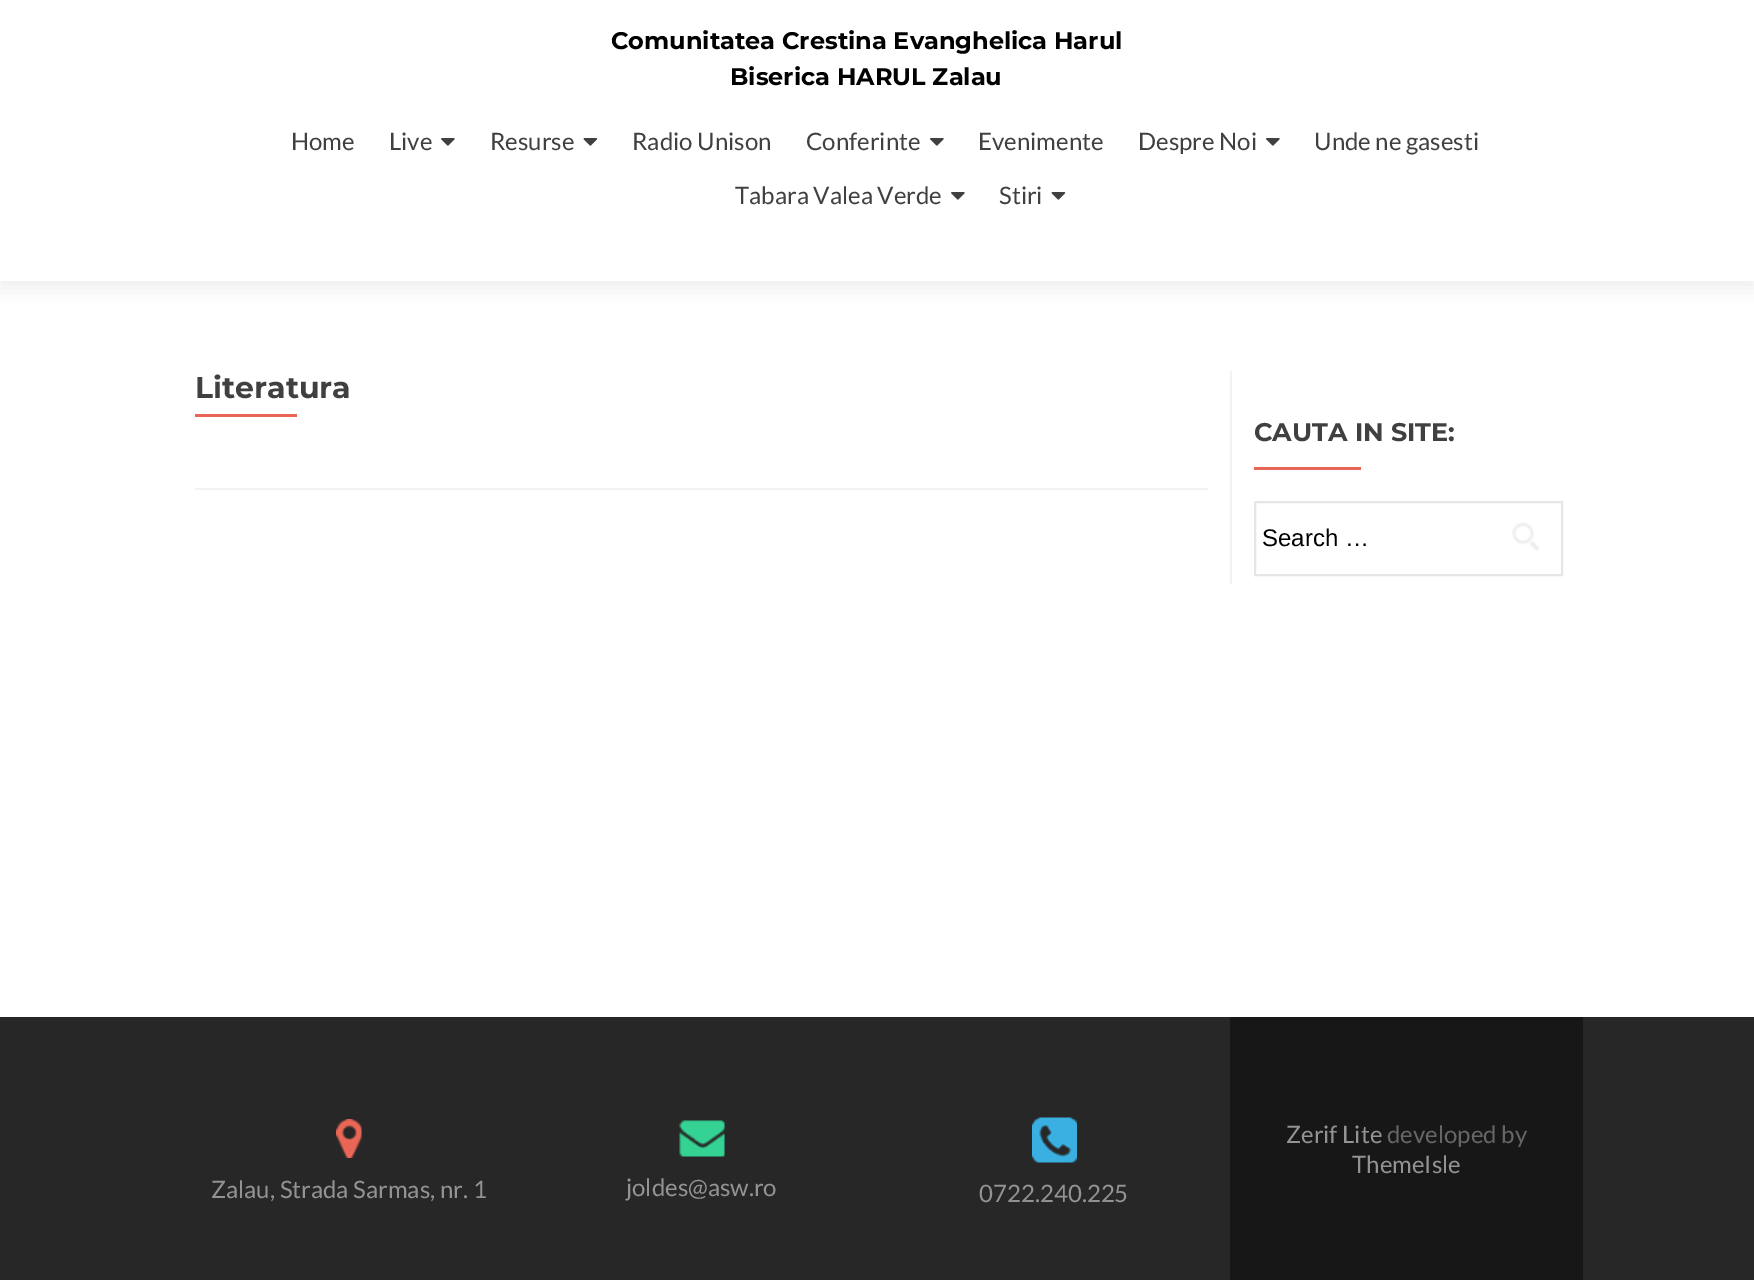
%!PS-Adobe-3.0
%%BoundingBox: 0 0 1754 1280
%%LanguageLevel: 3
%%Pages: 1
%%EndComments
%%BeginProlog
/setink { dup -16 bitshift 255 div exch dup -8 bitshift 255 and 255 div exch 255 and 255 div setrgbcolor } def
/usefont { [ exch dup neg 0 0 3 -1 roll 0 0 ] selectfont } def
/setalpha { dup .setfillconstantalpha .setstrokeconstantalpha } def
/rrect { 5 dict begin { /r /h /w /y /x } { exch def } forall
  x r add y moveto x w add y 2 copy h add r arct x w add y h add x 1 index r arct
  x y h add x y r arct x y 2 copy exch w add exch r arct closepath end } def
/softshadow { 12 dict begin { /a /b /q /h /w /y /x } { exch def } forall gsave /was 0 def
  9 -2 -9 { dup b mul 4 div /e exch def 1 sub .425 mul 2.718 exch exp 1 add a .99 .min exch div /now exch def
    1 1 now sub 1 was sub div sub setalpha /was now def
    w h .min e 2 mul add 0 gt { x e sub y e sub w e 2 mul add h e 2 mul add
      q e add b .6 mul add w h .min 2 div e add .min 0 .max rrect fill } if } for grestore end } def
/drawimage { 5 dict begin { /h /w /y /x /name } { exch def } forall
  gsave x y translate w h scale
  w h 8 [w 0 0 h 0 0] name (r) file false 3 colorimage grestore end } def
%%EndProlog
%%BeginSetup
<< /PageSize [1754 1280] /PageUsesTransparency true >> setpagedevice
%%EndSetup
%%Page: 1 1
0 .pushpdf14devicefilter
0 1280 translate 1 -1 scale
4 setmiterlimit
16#FFFFFF setink
0 0 1754 1280 rectfill
16#323232 setink
0 8 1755 280 0 8 0.08 softshadow
16#FFFFFF setink
0 0 1754 281 rectfill
/Montserrat-Bold 24 usefont
16#000000 setink
611 49 moveto (Comunitatea Crestina Evanghelica Harul) show
730 85 moveto (Biserica HARUL Zalau) show
/Lato-Regular 24 usefont
16#404040 setink
291 150 moveto (Home) show
389 150 moveto (Live) show
(img1.raw) 441 138 14 8 drawimage
490 150 moveto (Resurse) show
(img2.raw) 583 138 15 8 drawimage
632 150 moveto (Radio Unison) show
806 150 moveto (Conferinte) show
(img1.raw) 930 138 14 8 drawimage
978 150 moveto (Evenimente) show
1138 150 moveto (Despre Noi) show
(img1.raw) 1266 138 14 8 drawimage
1314 150 moveto (Unde ne gasesti) show
735 204 moveto (Tabara Valea Verde) show
(img1.raw) 951 192 14 8 drawimage
999 204 moveto (Stiri) show
(img2.raw) 1051 192 15 8 drawimage
16#F2F2F2 setink
195 488 1013 2 rectfill
/Montserrat-Bold 30 usefont
16#404040 setink
195 398 moveto (Literatura) show
16#E96656 setink
195 414 102 3 rectfill
16#F2F2F2 setink
1230 371 2 213 rectfill
/Montserrat-Bold 25.5 usefont
16#404040 setink
1254 441 moveto (CAUTA IN SITE:) show
16#E96656 setink
1254 467 107 3 rectfill
16#E6E6E6 setink
2 setlinewidth
1255 502 307 73 rectstroke
/LiberationSans-Regular 24 usefont
16#000000 setink
1262 546 moveto (Search …) show
(img3.raw) 1512 522 27 29 drawimage
16#272727 setink
0 1017 1754 263 rectfill
16#171717 setink
1230 1017 353 263 rectfill
/Lato-Regular 24 usefont
16#939393 setink
1286 1143 moveto (Zerif Lite) show
16#666666 setink
1387 1143 moveto (developed by) show
16#939393 setink
1352 1173 moveto (ThemeIsle) show
(img4.raw) 336 1119 26 39 drawimage
211 1198 moveto (Zalau, Strada Sarmas, nr. 1) show
(img5.raw) 679 1120 46 37 drawimage
626 1196 moveto (joldes@asw.ro) show
(img6.raw) 1032 1117 45 46 drawimage
979 1202 moveto (0722.240.225) show
.poppdf14devicefilter showpage
%%EOF
